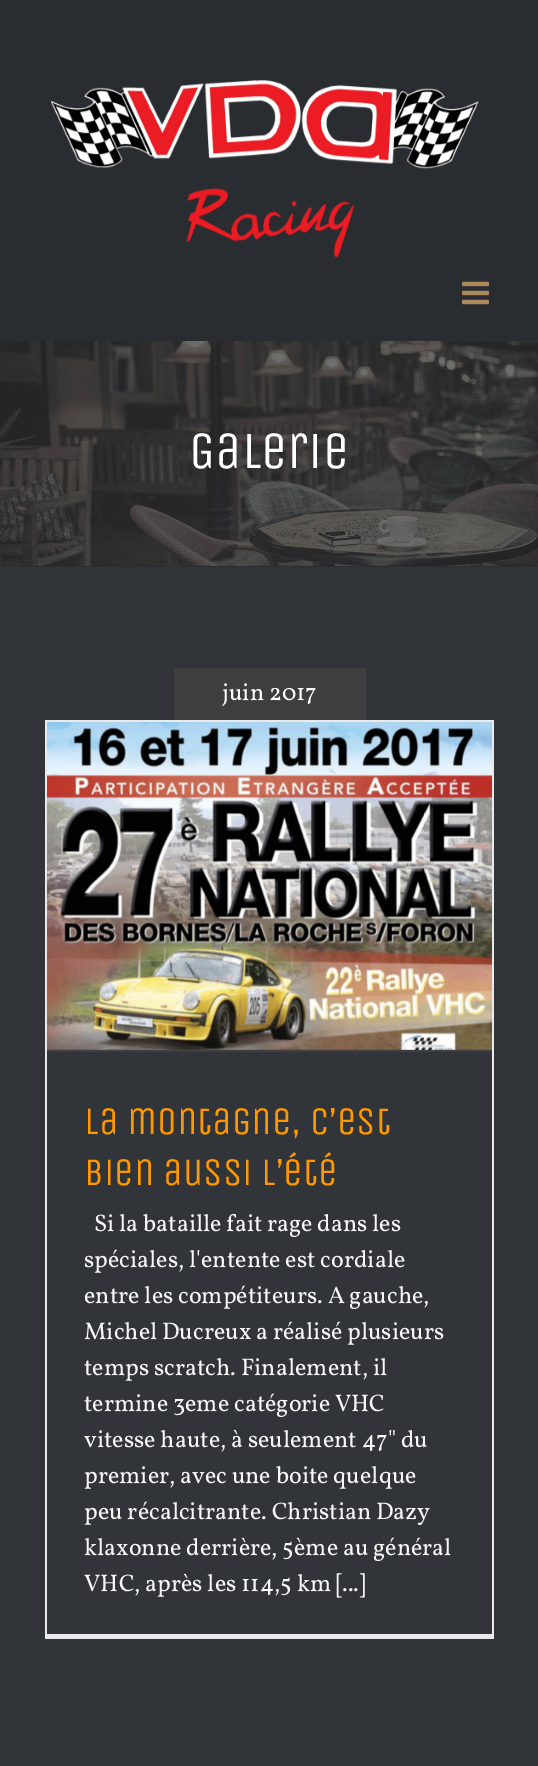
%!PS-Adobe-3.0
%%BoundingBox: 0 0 538 1766
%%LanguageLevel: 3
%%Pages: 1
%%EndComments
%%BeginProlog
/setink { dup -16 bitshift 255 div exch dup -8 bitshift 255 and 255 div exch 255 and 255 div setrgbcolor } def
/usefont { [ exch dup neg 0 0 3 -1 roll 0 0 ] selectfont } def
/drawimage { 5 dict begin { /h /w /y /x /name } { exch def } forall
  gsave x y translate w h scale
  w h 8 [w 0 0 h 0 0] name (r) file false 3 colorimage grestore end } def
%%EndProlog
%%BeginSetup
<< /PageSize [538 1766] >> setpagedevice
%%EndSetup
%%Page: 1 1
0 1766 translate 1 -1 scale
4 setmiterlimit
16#FFFFFF setink
0 0 538 1766 rectfill
16#292C30 setink
0 0 538 341 rectfill
(img1.raw) 45 30 449 228 drawimage
(img2.raw) 462 281 27 24 drawimage
(img3.raw) 0 341 538 225 drawimage
0 566 538 1 rectfill
/UnicaOne-Regular 52.5 usefont
16#FFFFFF setink
189 468 moveto (Galerie) show
16#313539 setink
0 567 538 1199 rectfill
16#3E3E3E setink
174 668 192 52 rectfill
/Vollkorn-Regular 24 usefont
16#FFFFFF setink
222 700 moveto (juin 2017) show
[
    [45 720 449 2 16#EAEAEA]
    [492 720 2 918 16#EAEAEA]
    [45 1634 449 5 16#EAEAEA]
    [45 720 2 918 16#EAEAEA]
    [47 1050 445 2 16#3E3E3E]
] { aload pop setink rectfill } forall
(img4.raw) 47 722 445 328 drawimage
/UnicaOne-Regular 39 usefont
16#FF9800 setink
84 1134 moveto (La montagne, c’est) show
84 1185 moveto (bien aussi l’été) show
/Vollkorn-Regular 24 usefont
16#F7F7F7 setink
[
    [(Si la bataille fait rage dans les) 94 1231]
    [(spéciales, l'entente est cordiale) 84 1267]
    [(entre les compétiteurs. A gauche,) 84 1303]
    [(Michel Ducreux a réalisé plusieurs) 84 1339]
    [(temps scratch. Finalement, il) 84 1375]
    [(termine 3eme catégorie VHC) 84 1411]
    [(vitesse haute, à seulement 47" du) 84 1447]
    [(premier, avec une boite quelque) 84 1483]
    [(peu récalcitrante. Christian Dazy) 84 1519]
    [(klaxonne derrière, 5ème au général) 84 1555]
    [(VHC, après les 114,5 km [...]) 84 1591]
] { aload pop moveto show } forall
showpage
%%EOF
